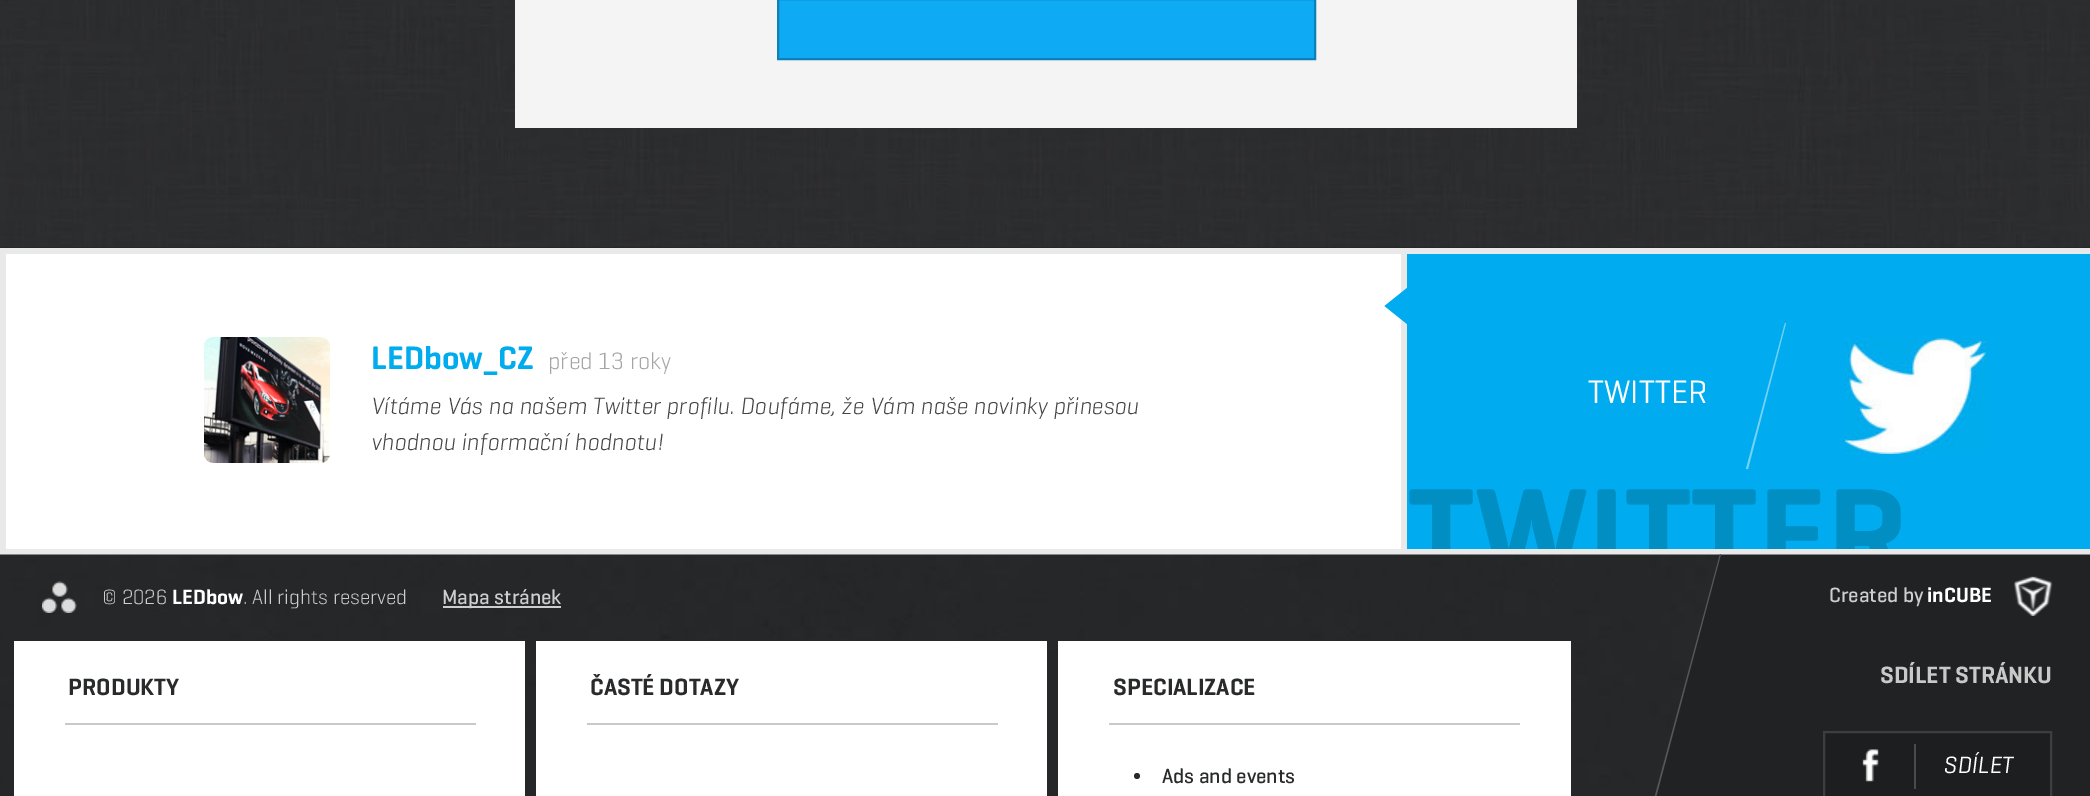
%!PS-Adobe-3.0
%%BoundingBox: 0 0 2090 796
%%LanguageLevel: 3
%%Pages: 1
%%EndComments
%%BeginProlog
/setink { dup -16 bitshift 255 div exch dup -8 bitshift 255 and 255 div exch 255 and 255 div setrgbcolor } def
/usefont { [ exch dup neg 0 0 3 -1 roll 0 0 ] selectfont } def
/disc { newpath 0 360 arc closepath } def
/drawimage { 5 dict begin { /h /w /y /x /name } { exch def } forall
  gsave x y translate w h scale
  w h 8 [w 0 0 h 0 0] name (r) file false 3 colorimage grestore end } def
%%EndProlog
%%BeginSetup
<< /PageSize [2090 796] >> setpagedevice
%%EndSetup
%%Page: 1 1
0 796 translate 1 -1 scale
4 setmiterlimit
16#E9E9E9 setink
0 0 2090 796 rectfill
16#25272A setink
0 247 2090 1 rectfill
(img1.raw) 0 0 2090 247 drawimage
16#F4F4F4 setink
515 0 1062 128 rectfill
16#0FAAF4 setink
778 -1 moveto 1315 -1 lineto 1315 59 lineto 778 59 lineto closepath gsave fill grestore
16#0E80B7 setink
2 setlinewidth
stroke
16#FFFFFF setink
6 254 1395 295 rectfill
(img2.raw) 204 337 126 126 drawimage
/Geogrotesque-SemiBold 33 usefont
16#00ACED setink
371 369 moveto (LEDbow_CZ) show
/Geogrotesque-Light 24 usefont
16#A5A5A5 setink
548 369 moveto (před 13 roky) show
/Geogrotesque-LightItalic 24 usefont
16#454545 setink
371 414 moveto (Vítáme Vás na našem Twitter profilu. Doufáme, že Vám naše novinky přinesou) show
371 450 moveto (vhodnou informační hodnotu!) show
16#00ACEF setink
1407 254 683 295 rectfill
1407 288 moveto 1407 324 lineto 1384.5 306 lineto closepath fill
/Geogrotesque-Regular 33 usefont
16#FFFFFF setink
1588 403 moveto (TWITTER) show
(img3.raw) 1845 338 141 116 drawimage
16#73D2F5 setink
1785 323 moveto 1786 323 lineto 1748 469 lineto 1746 469 lineto closepath fill
gsave
1407 468 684 81 rectclip
/Geogrotesque-SemiBold 135 usefont
16#018EC3 setink
1408 581 moveto (TWITTER) show
grestore
16#252729 setink
0 787 1658 9 rectfill
(img4.raw) 0 554 2090 233 drawimage
(img5.raw) 42 581 35 32 drawimage
/Geogrotesque-Light 21 usefont
16#CCCED0 setink
102 604 moveto (© 2026) show
/Geogrotesque-SemiBold 21 usefont
16#FFFFFF setink
172 604 moveto (LEDbow) show
/Geogrotesque-Light 21 usefont
16#CCCED0 setink
243 604 moveto (. All rights reserved) show
443 606 118 2 rectfill
/Geogrotesque-Medium 21 usefont
442 604 moveto (Mapa stránek) show
gsave
0 555 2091 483 rectclip
16#202224 setink
1720 554 moveto 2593 554 lineto 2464 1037 lineto 1590 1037 lineto closepath fill
grestore
16#57585A setink
1720 554 moveto 1721 554 lineto 1592 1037 lineto 1590 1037 lineto closepath fill
16#CCCED0 setink
1829 602 moveto (Created by) show
/Geogrotesque-SemiBold 21 usefont
16#FFFFFF setink
1927 602 moveto (inCUBE) show
(img6.raw) 2014 576 39 40 drawimage
/Geogrotesque-SemiBold 24 usefont
16#C9C9C9 setink
1880 683 moveto (SDÍLET STRÁNKU) show
16#1C1E1F setink
1824 732 moveto 2051 732 lineto 2051 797 lineto 1824 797 lineto closepath gsave fill grestore
16#3C3E40 setink
stroke
(img7.raw) 1862 749 17 33 drawimage
16#4A4C4C setink
1914 744 2 45 rectfill
/Geogrotesque-Italic 24 usefont
16#FFFFFF setink
1943 773 moveto (SDÍLET) show
14 641 511 155 rectfill
16#C9C9C9 setink
65 723 411 2 rectfill
/Geogrotesque-SemiBold 24 usefont
16#292A2B setink
68 695 moveto (PRODUKTY) show
16#FFFFFF setink
536 641 511 155 rectfill
16#C9C9C9 setink
587 723 411 2 rectfill
16#292A2B setink
590 695 moveto (ČASTÉ DOTAZY) show
16#FFFFFF setink
1058 641 513 155 rectfill
16#C9C9C9 setink
1109 723 411 2 rectfill
16#292A2B setink
1113 695 moveto (SPECIALIZACE) show
1137 776 3 disc fill
/Geogrotesque-Medium 21 usefont
1162 783 moveto (Ads and events) show
showpage
%%EOF
